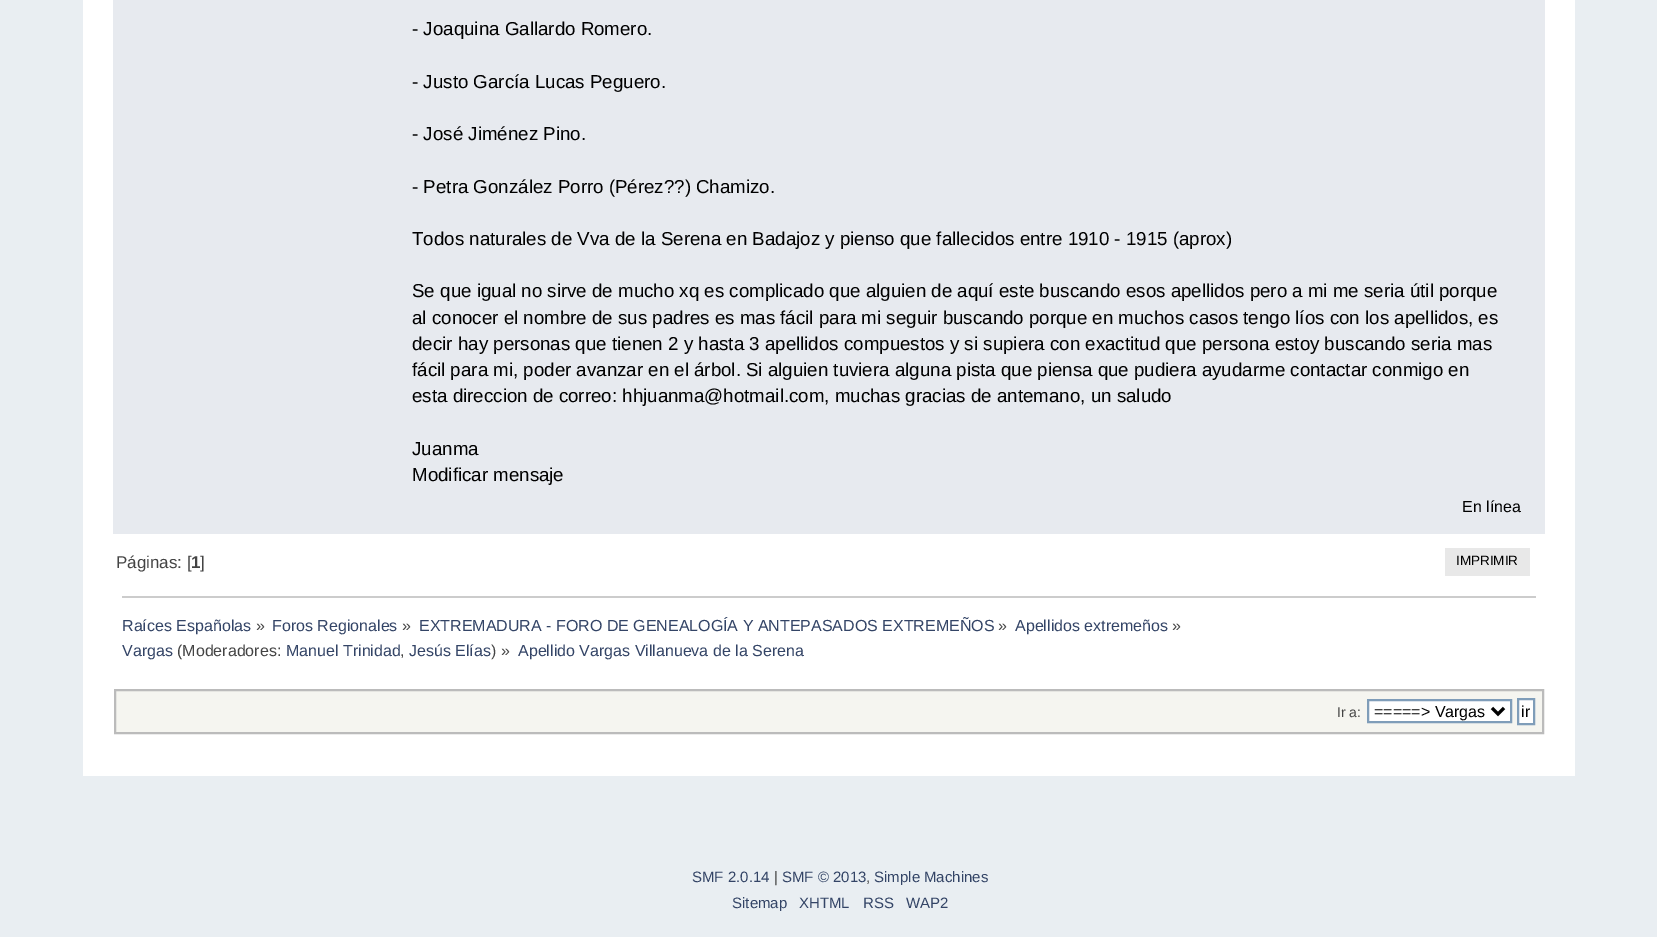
%!PS-Adobe-3.0
%%BoundingBox: 0 0 1657 937
%%LanguageLevel: 3
%%Pages: 1
%%EndComments
%%BeginProlog
/setink { dup -16 bitshift 255 div exch dup -8 bitshift 255 and 255 div exch 255 and 255 div setrgbcolor } def
/usefont { [ exch dup neg 0 0 3 -1 roll 0 0 ] selectfont } def
%%EndProlog
%%BeginSetup
<< /PageSize [1657 937] >> setpagedevice
%%EndSetup
%%Page: 1 1
0 937 translate 1 -1 scale
4 setmiterlimit
16#E9EEF2 setink
0 0 1657 937 rectfill
16#FFFFFF setink
83 0 1492 776 rectfill
16#E7EAEF setink
113 0 1432 534 rectfill
/LiberationSans-Regular 18.72 usefont
16#000000 setink
[
    [(- Joaquina Gallardo Romero.) 412 35]
    [(- Justo García Lucas Peguero.) 412 88]
    [(- José Jiménez Pino.) 412 140]
    [(- Petra González Porro \(Pérez??\) Chamizo.) 412 193]
    [(Todos naturales de Vva de la Serena en Badajoz y pienso que fallecidos entre 1910 - 1915 \(aprox\)) 412 245]
    [(Se que igual no sirve de mucho xq es complicado que alguien de aquí este buscando esos apellidos pero a mi me seria útil porque) 412 297]
    [(al conocer el nombre de sus padres es mas fácil para mi seguir buscando porque en muchos casos tengo líos con los apellidos, es) 412 324]
    [(decir hay personas que tienen 2 y hasta 3 apellidos compuestos y si supiera con exactitud que persona estoy buscando seria mas) 412 350]
    [(fácil para mi, poder avanzar en el árbol. Si alguien tuviera alguna pista que piensa que pudiera ayudarme contactar conmigo en) 412 376]
    [(esta direccion de correo: hhjuanma@hotmail.com, muchas gracias de antemano, un saludo) 412 402]
    [(Juanma) 412 455]
    [(Modificar mensaje) 412 481]
] { aload pop moveto show } forall
/LiberationSans-Regular 16 usefont
1462 512 moveto (En línea) show
/LiberationSans-Regular 17 usefont
16#444444 setink
116 568 moveto (Páginas: [) show
/LiberationSans-Bold 17 usefont
191 568 moveto (1) show
/LiberationSans-Regular 17 usefont
200 568 moveto (]) show
16#E8E8E8 setink
1445 548 85 28 rectfill
/LiberationSans-Regular 13.5 usefont
16#000000 setink
1456 565 moveto (IMPRIMIR) show
16#CCCCCC setink
122 596 1414 2 rectfill
/LiberationSans-Regular 16 usefont
16#334466 setink
122 631 moveto (Raíces Españolas) show
16#444444 setink
256 631 moveto (») show
16#334466 setink
272 631 moveto (Foros Regionales) show
16#444444 setink
402 631 moveto (») show
16#334466 setink
419 631 moveto (EXTREMADURA - FORO DE GENEALOGÍA Y ANTEPASADOS EXTREMEÑOS) show
16#444444 setink
998 631 moveto (») show
16#334466 setink
1015 631 moveto (Apellidos extremeños) show
16#444444 setink
1172 631 moveto (») show
16#334466 setink
122 656 moveto (Vargas) show
16#444444 setink
177 656 moveto (\(Moderadores:) show
16#334466 setink
286 656 moveto (Manuel Trinidad) show
16#444444 setink
400 656 moveto (,) show
16#334466 setink
409 656 moveto (Jesús Elías) show
16#444444 setink
491 656 moveto (\) ») show
16#334466 setink
518 656 moveto (Apellido Vargas Villanueva de la Serena) show
16#F5F5F0 setink
115 690 moveto 1543 690 lineto 1543 733 lineto 115 733 lineto closepath gsave fill grestore
16#BBBBBB setink
2 setlinewidth
stroke
/LiberationSans-Regular 14 usefont
16#444444 setink
1337 717 moveto (Ir a:) show
16#FFFFFF setink
1368 700 moveto 1511 700 lineto 1511 722 lineto 1368 722 lineto closepath gsave fill grestore
16#7F9DB9 setink
stroke
16#000000 setink
3 setlinewidth
1492 708 moveto 1498 714 lineto 1504 708 lineto stroke
/LiberationSans-Regular 16 usefont
1374 717 moveto (=====> Vargas) show
16#FFFFFF setink
1518 699 moveto 1534 699 lineto 1534 724 lineto 1518 724 lineto closepath gsave fill grestore
16#7F9DB9 setink
2 setlinewidth
stroke
16#000000 setink
1521 717 moveto (ir) show
/LiberationSans-Regular 15 usefont
16#334466 setink
692 882 moveto (SMF 2.0.14) show
16#444444 setink
774 882 moveto (|) show
16#334466 setink
782 882 moveto (SMF © 2013) show
16#444444 setink
866 882 moveto (,) show
16#334466 setink
[
    [(Simple Machines) 874 882]
    [(Sitemap) 732 908]
    [(XHTML) 799 908]
    [(RSS) 863 908]
    [(WAP2) 906 908]
] { aload pop moveto show } forall
showpage
%%EOF
